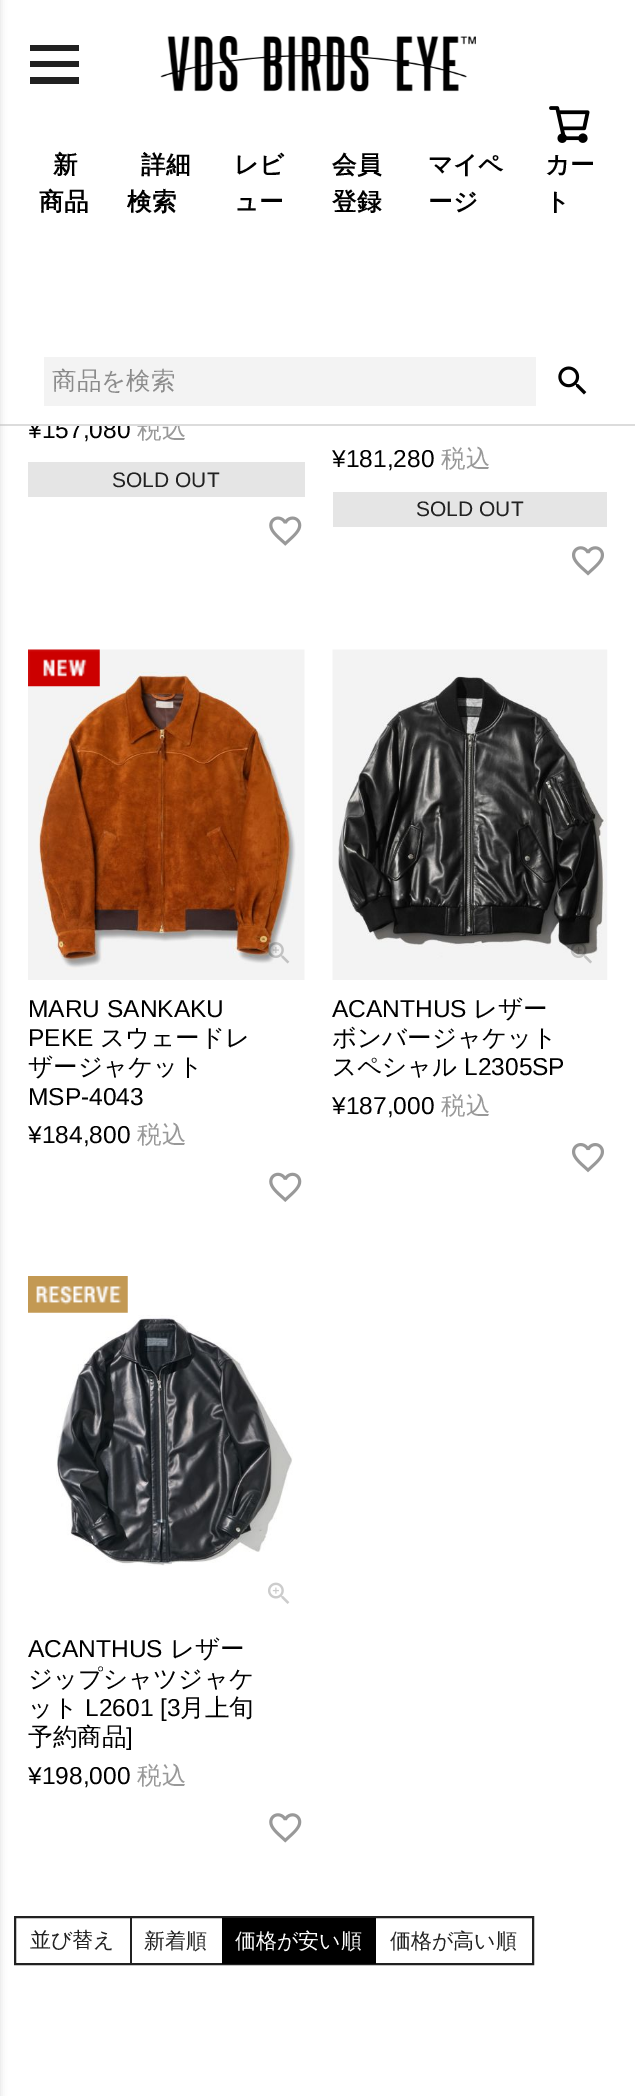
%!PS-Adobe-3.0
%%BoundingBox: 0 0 635 2096
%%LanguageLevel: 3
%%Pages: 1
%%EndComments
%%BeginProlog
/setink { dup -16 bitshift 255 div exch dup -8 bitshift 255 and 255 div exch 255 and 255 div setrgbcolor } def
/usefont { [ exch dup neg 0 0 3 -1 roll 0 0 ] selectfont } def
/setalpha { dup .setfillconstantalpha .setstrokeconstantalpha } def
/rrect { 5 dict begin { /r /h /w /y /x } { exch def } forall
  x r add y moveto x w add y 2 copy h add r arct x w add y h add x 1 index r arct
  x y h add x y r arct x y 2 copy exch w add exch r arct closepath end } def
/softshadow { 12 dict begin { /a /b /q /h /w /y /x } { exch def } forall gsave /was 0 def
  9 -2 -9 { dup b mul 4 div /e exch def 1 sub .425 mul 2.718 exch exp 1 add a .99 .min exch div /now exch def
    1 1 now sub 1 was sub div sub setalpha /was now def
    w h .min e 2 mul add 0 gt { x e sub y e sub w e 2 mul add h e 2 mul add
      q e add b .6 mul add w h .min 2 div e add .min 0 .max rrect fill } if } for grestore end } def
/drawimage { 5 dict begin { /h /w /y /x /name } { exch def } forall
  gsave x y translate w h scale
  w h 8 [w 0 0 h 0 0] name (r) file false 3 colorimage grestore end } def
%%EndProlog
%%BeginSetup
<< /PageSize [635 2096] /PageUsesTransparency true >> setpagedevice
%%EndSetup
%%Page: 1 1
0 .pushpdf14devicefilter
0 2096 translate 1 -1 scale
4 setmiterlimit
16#FFFFFF setink
0 0 635 2096 rectfill
/LiberationSans-Regular 24.5 usefont
16#000000 setink
28 438 moveto (¥157,080) show
/WenQuanYiZenHei-Medium 24.5 usefont
16#999999 setink
137 438 moveto (税込) show
16#FFFFFF setink
28 417 151 7 rectfill
16#DCDCDC setink
0 424 635 2 rectfill
16#B2B2B2 setink
-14 -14 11 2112 0 4.5 1 softshadow
16#212121 setink
30 45 moveto 79 45 lineto 79 51 lineto 30 51 lineto closepath 30 61 moveto 79 61 lineto 79 67 lineto 30 67 lineto closepath 30 77 moveto 79 77 lineto 79 84 lineto 30 84 lineto closepath fill
(img1.raw) 160 36 316 56 drawimage
/WenQuanYiZenHei-Bold 24.5 usefont
16#000000 setink
[
    [(新) 53 173]
    [(商品) 39 210]
    [(詳細) 141 173]
    [(検索) 127 210]
    [(レビ) 234 173]
    [(ュー) 234 210]
    [(会員) 332 173]
    [(登録) 332 210]
    [(マイペ) 428 173]
    [(ージ) 428 210]
] { aload pop moveto show } forall
(img2.raw) 549 106 41 37 drawimage
545 173 moveto (カー) show
545 210 moveto (ト) show
16#F3F3F3 setink
44 357 492 49 rectfill
/WenQuanYiZenHei-Medium 24.5 usefont
16#8B8B8B setink
52 389 moveto (商品を検索) show
(img3.raw) 558 366 29 29 drawimage
16#E5E5E5 setink
28 462 277 35 rectfill
/LiberationSans-Regular 21 usefont
16#212121 setink
112 487 moveto (SOLD OUT) show
(img4.raw) 269 516 33 30 drawimage
/LiberationSans-Regular 24.5 usefont
16#000000 setink
332 467 moveto (¥181,280) show
/WenQuanYiZenHei-Medium 24.5 usefont
16#999999 setink
441 467 moveto (税込) show
16#E5E5E5 setink
333 492 274 35 rectfill
/LiberationSans-Regular 21 usefont
16#212121 setink
416 516 moveto (SOLD OUT) show
(img5.raw) 572 546 32 30 drawimage
(img6.raw) 28 649 277 331 drawimage
(img7.raw) 28 649 72 38 drawimage
(img8.raw) 268 942 22 22 drawimage
/LiberationSans-Regular 24.5 usefont
16#000000 setink
28 1017 moveto (MARU SANKAKU) show
28 1046 moveto (PEKE) show
/WenQuanYiZenHei-Medium 24.5 usefont
100 1046 moveto (スウェードレ) show
28 1075 moveto (ザージャケット) show
/LiberationSans-Regular 24.5 usefont
28 1105 moveto (MSP-4043) show
28 1143 moveto (¥184,800) show
/WenQuanYiZenHei-Medium 24.5 usefont
16#999999 setink
137 1143 moveto (税込) show
(img9.raw) 269 1172 33 30 drawimage
(img10.raw) 332 649 276 331 drawimage
(img11.raw) 570 943 22 21 drawimage
/LiberationSans-Regular 24.5 usefont
16#000000 setink
332 1017 moveto (ACANTHUS) show
/WenQuanYiZenHei-Medium 24.5 usefont
[
    [(レザー) 473 1017]
    [(ボンバージャケット) 332 1046]
    [(スペシャル) 332 1075]
] { aload pop moveto show } forall
/LiberationSans-Regular 24.5 usefont
464 1075 moveto (L2305SP) show
332 1114 moveto (¥187,000) show
/WenQuanYiZenHei-Medium 24.5 usefont
16#999999 setink
441 1114 moveto (税込) show
(img12.raw) 572 1143 32 30 drawimage
(img13.raw) 28 1276 100 37 drawimage
(img14.raw) 56 1315 237 251 drawimage
(img15.raw) 268 1582 22 22 drawimage
/LiberationSans-Regular 24.5 usefont
16#000000 setink
28 1657 moveto (ACANTHUS) show
/WenQuanYiZenHei-Medium 24.5 usefont
[
    [(レザー) 170 1657]
    [(ジップシャツジャケ) 28 1687]
    [(ット) 28 1716]
] { aload pop moveto show } forall
/LiberationSans-Regular 24.5 usefont
85 1716 moveto (L2601 [3) show
/WenQuanYiZenHei-Medium 24.5 usefont
180 1716 moveto (月上旬) show
28 1745 moveto (予約商品) show
/LiberationSans-Regular 24.5 usefont
126 1745 moveto (]) show
28 1784 moveto (¥198,000) show
/WenQuanYiZenHei-Medium 24.5 usefont
16#999999 setink
137 1784 moveto (税込) show
(img16.raw) 269 1813 33 30 drawimage
16#212121 setink
2 setlinewidth
15 1917 518 47 rectstroke
/WenQuanYiZenHei-Medium 21 usefont
30 1947 moveto (並び替え) show
130 1918 2 46 rectfill
144 1948 moveto (新着順) show
16#000000 setink
222 1918 154 46 rectfill
16#FFFFFF setink
235 1948 moveto (価格が安い順) show
16#212121 setink
390 1948 moveto (価格が高い順) show
.poppdf14devicefilter showpage
%%EOF
